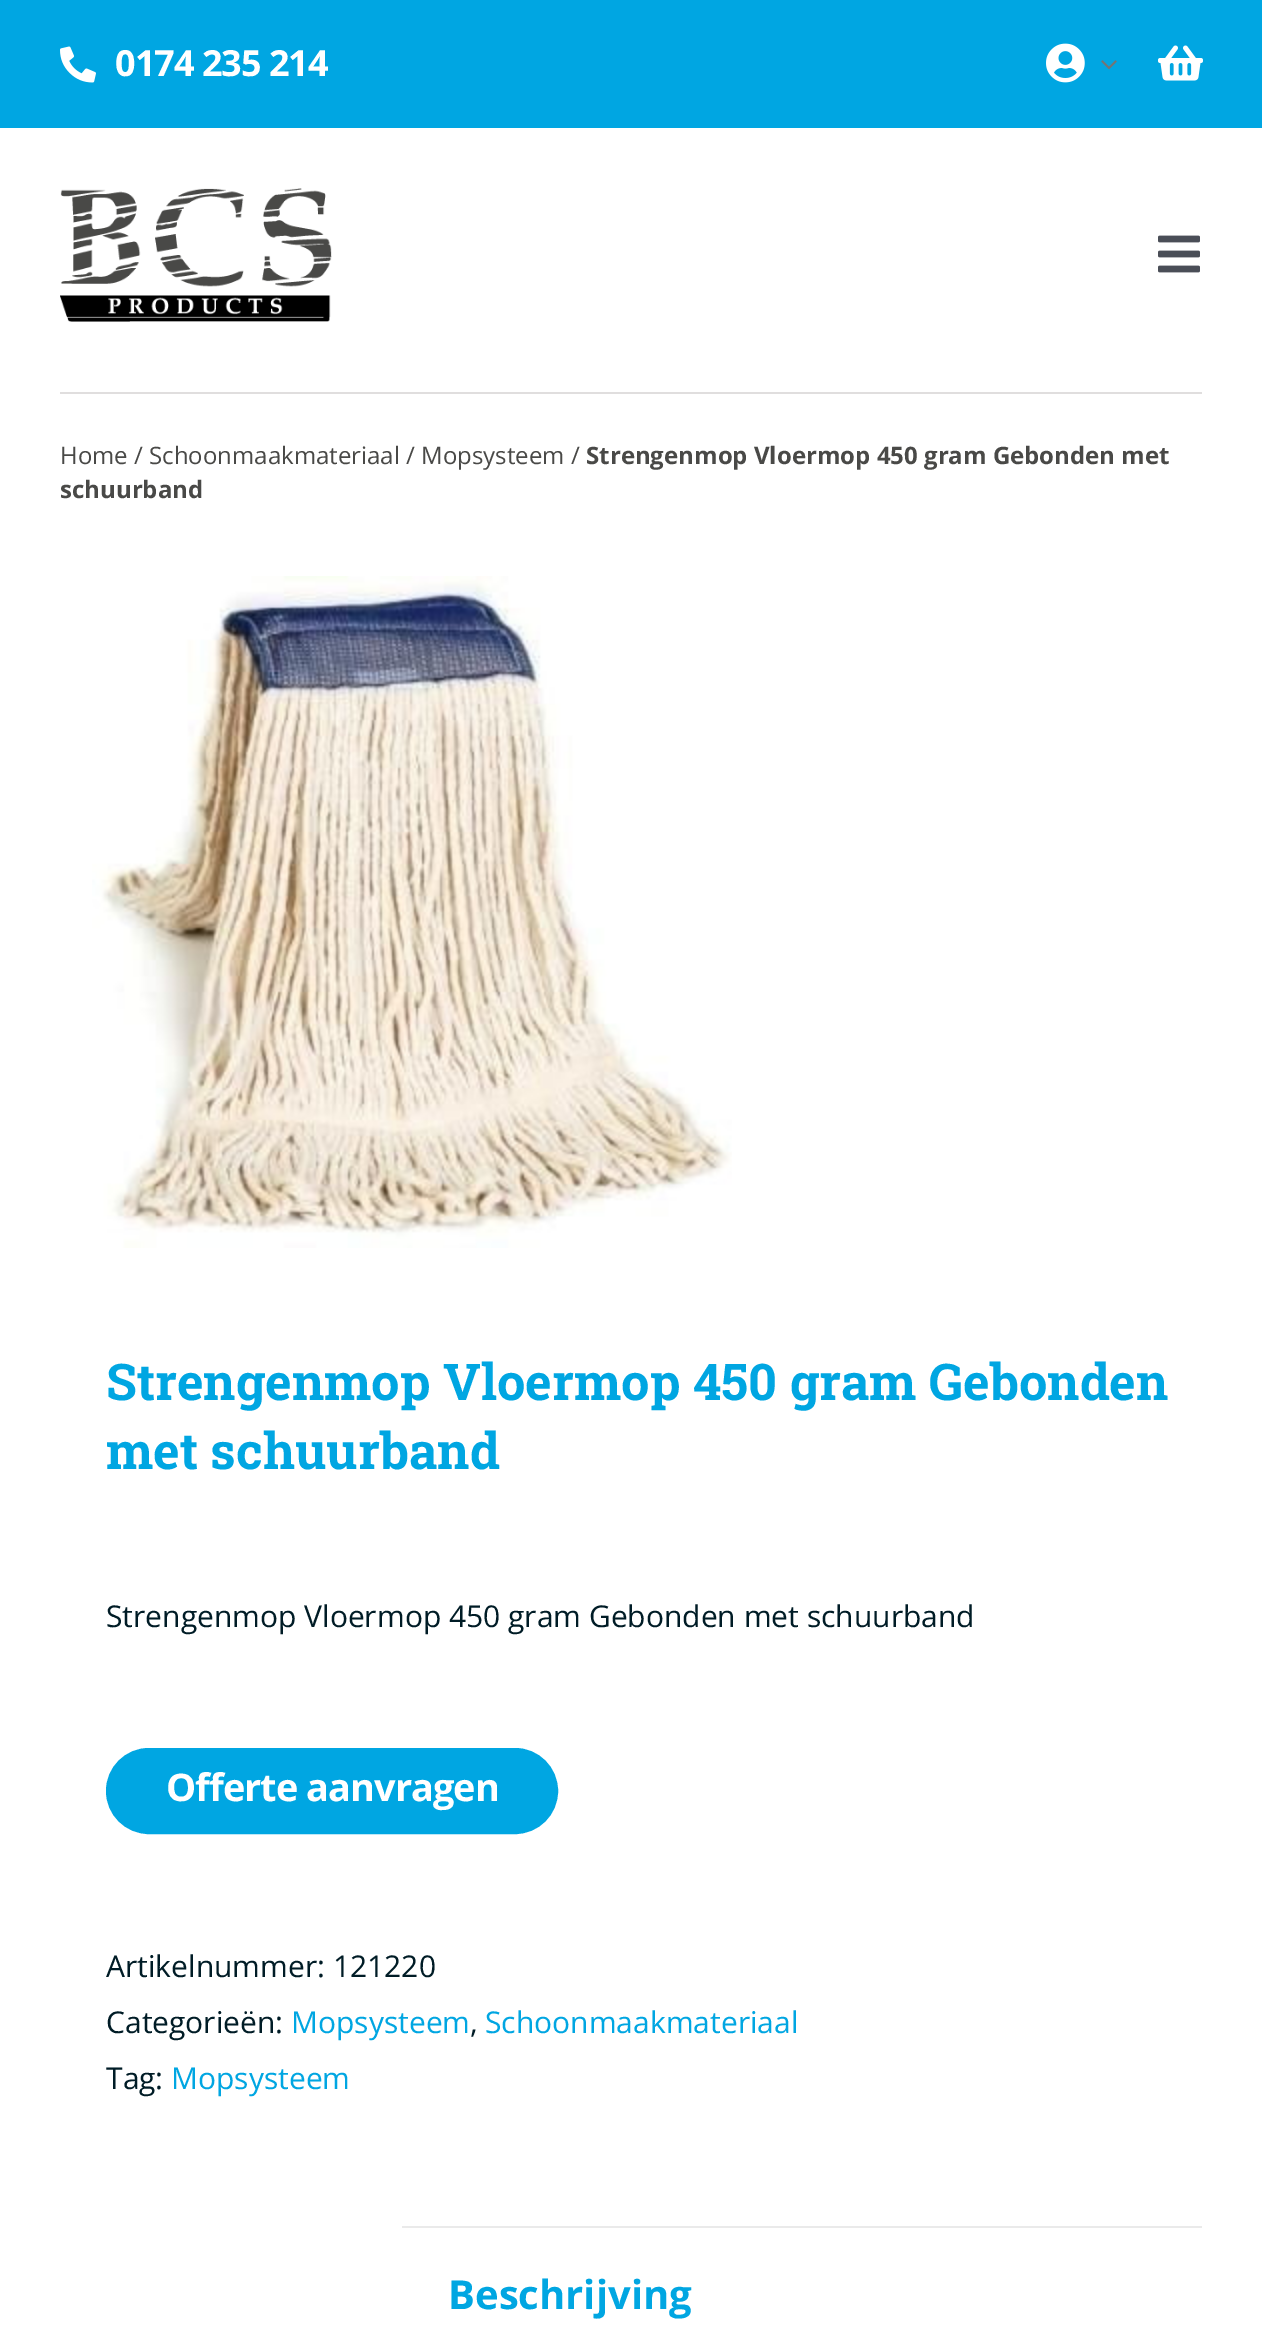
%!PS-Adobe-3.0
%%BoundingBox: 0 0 1262 2325
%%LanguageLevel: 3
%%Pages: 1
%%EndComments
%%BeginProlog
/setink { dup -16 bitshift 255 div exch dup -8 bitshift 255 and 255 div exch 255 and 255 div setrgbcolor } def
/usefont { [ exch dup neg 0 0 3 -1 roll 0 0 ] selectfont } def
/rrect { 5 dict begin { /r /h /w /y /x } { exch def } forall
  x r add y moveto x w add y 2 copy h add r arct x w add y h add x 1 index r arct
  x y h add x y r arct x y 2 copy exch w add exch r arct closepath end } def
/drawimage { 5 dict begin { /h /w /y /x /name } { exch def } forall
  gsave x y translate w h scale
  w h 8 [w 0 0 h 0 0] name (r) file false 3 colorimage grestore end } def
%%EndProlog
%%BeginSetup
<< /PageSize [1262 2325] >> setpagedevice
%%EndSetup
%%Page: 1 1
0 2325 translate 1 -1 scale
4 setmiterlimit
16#FFFFFF setink
0 0 1262 2325 rectfill
16#00A6E2 setink
0 0 1262 128 rectfill
(img1.raw) 60 46 36 37 drawimage
/OpenSans-Bold 36 usefont
16#FFFFFF setink
115 76 moveto -1 0 (0174 235 214) ashow
(img2.raw) 1046 43 39 40 drawimage
(img3.raw) 1101 60 16 10 drawimage
(img4.raw) 1158 45 45 36 drawimage
(img5.raw) 60 188 272 134 drawimage
(img6.raw) 1158 235 42 38 drawimage
16#E0DEDE setink
60 392 1142 2 rectfill
/OpenSans-Regular 24 usefont
16#494947 setink
60 464 moveto (Home / Schoonmaakmateriaal / Mopsysteem /) show
/OpenSans-Bold 24 usefont
586 464 moveto (Strengenmop Vloermop 450 gram Gebonden met) show
60 498 moveto (schuurband) show
(img7.raw) 92 576 640 672 drawimage
/RobotoSlab-Bold 50.55 usefont
16#00A6E2 setink
106 1400 moveto (Strengenmop Vloermop 450 gram Gebonden) show
106 1469 moveto (met schuurband) show
/OpenSans-Regular 30 usefont
16#001C26 setink
106 1627 moveto (Strengenmop Vloermop 450 gram Gebonden met schuurband) show
16#00A6E2 setink
108 1750 448 82 41 rrect gsave fill grestore
4 setlinewidth
stroke
/OpenSans-Bold 38 usefont
16#FFFFFF setink
166 1801 moveto -1 0 (Offerte aanvragen) ashow
/OpenSans-Regular 30 usefont
16#001C26 setink
106 1977 moveto (Artikelnummer: 121220) show
106 2033 moveto (Categorieën:) show
16#00A6E2 setink
291 2033 moveto (Mopsysteem) show
16#001C26 setink
470 2033 moveto (,) show
16#00A6E2 setink
485 2033 moveto (Schoonmaakmateriaal) show
16#001C26 setink
106 2089 moveto (Tag:) show
16#00A6E2 setink
171 2089 moveto (Mopsysteem) show
16#EAEAEA setink
402 2226 800 2 rectfill
/OpenSans-Bold 40 usefont
16#00A6E2 setink
448 2309 moveto (Beschrijving) show
showpage
%%EOF
